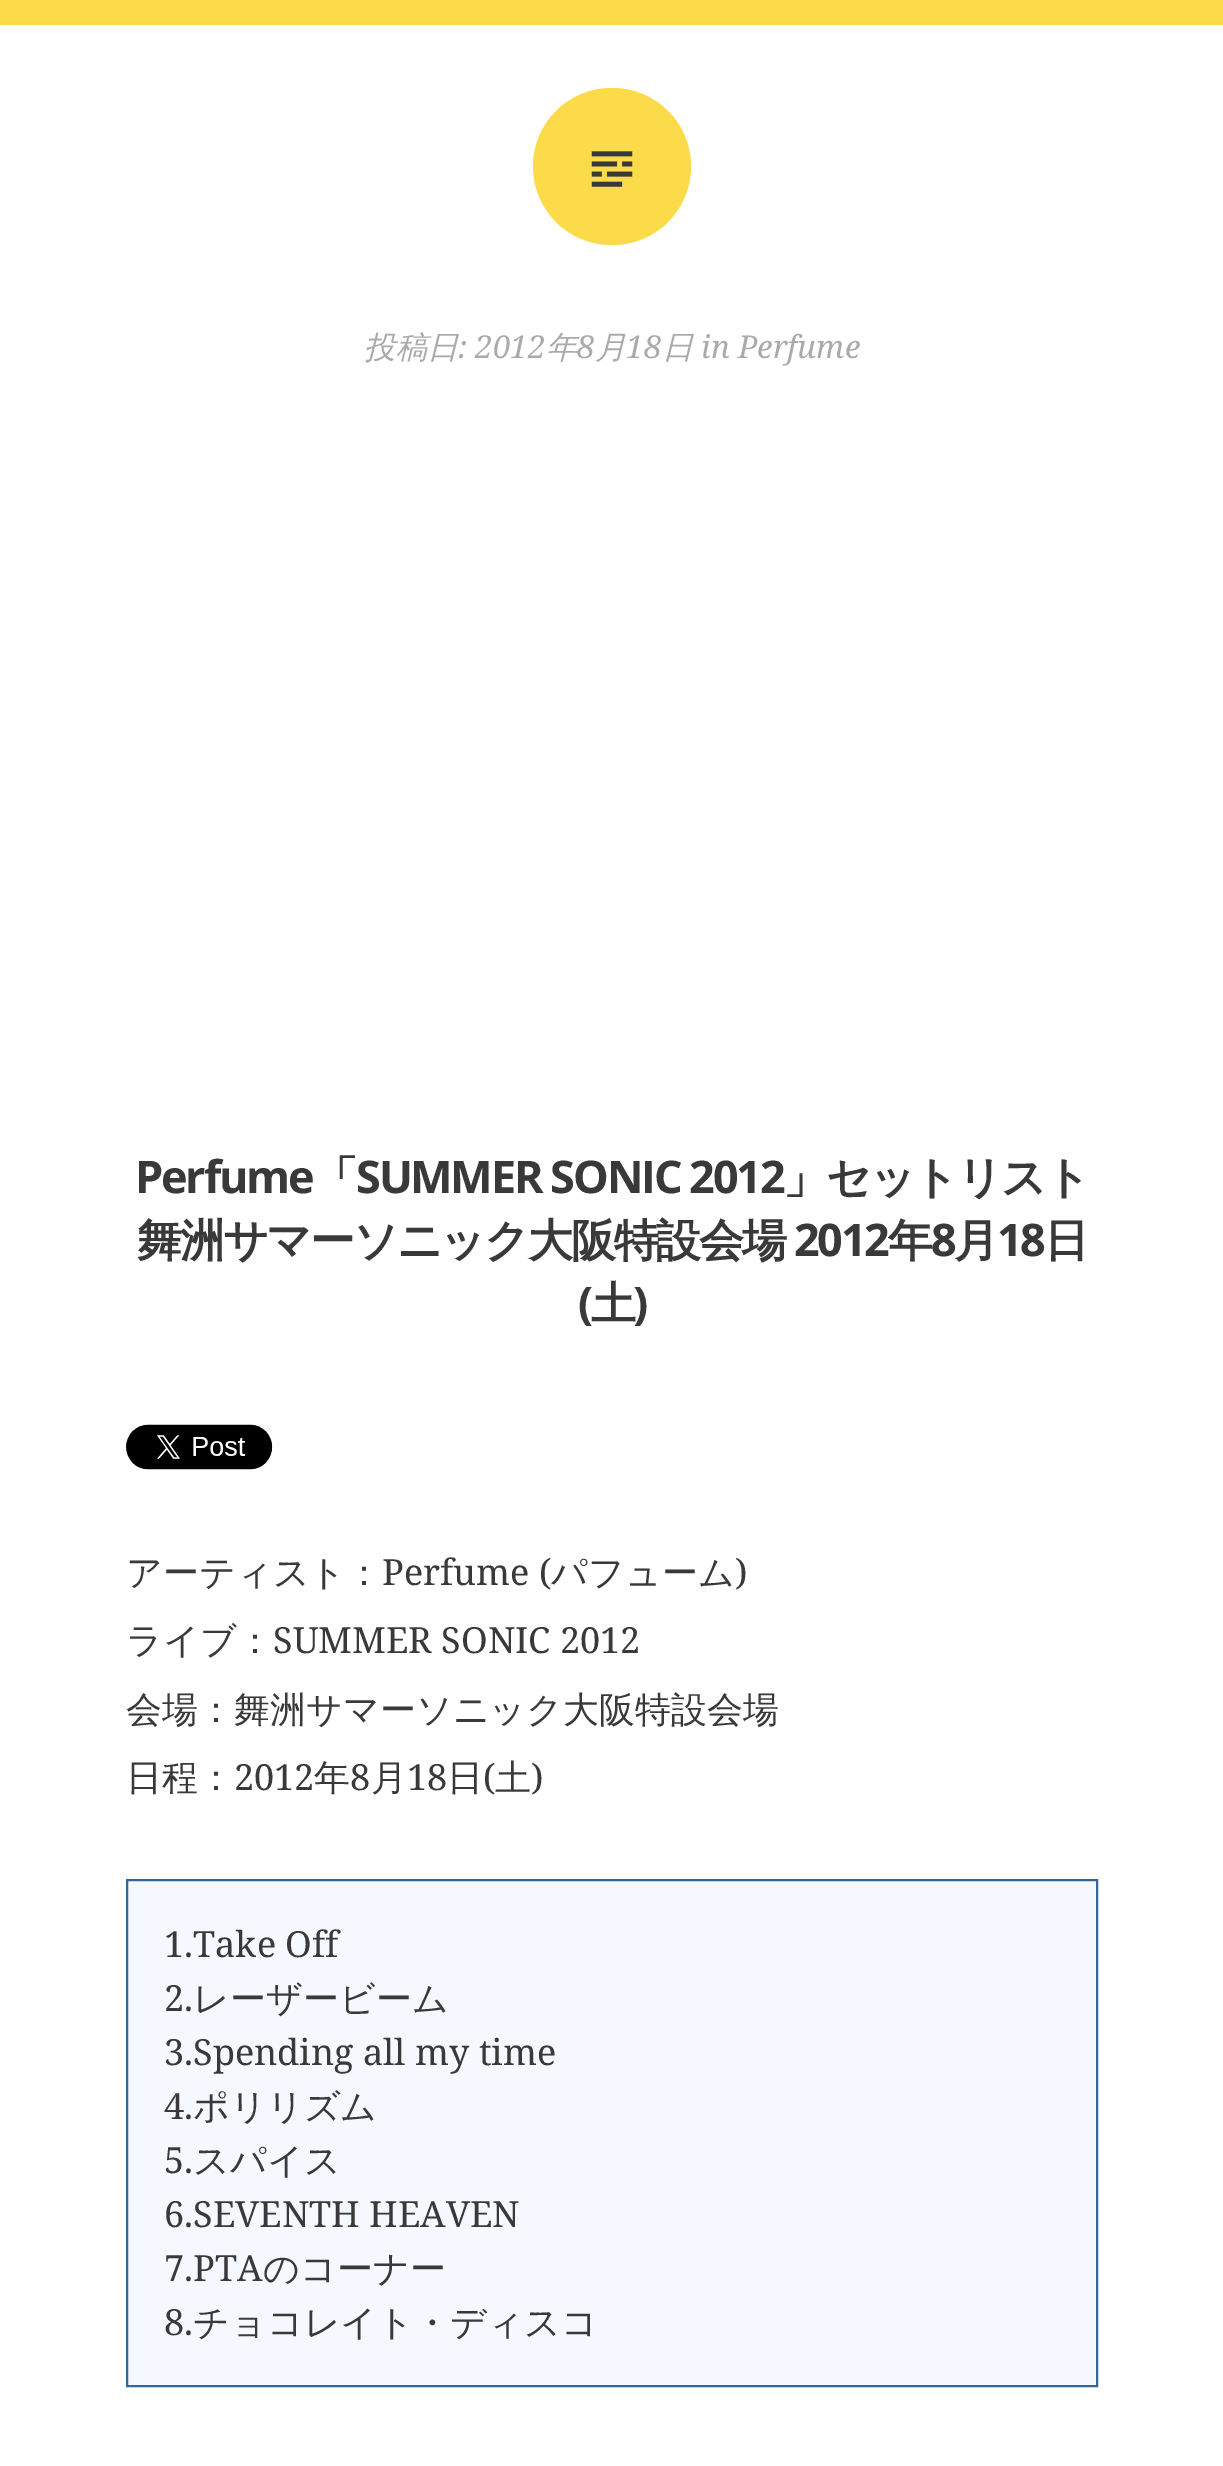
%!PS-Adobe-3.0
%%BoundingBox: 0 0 1223 2466
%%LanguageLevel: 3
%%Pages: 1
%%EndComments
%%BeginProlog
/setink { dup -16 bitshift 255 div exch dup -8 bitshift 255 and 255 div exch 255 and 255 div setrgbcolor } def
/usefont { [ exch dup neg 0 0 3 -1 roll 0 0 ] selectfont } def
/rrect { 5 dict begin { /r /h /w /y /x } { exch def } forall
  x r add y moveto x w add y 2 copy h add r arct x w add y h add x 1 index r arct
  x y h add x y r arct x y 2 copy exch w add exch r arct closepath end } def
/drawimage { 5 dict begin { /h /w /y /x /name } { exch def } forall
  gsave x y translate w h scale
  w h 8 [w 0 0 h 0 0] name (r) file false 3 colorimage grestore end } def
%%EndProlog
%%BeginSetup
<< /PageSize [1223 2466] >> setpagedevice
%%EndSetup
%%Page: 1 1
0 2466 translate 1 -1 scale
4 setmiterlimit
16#FFFFFF setink
0 0 1223 2466 rectfill
16#FBDB4A setink
0 0 1223 25 rectfill
533 88 158 157 78.5 rrect fill
(img1.raw) 591 151 42 36 drawimage
/WenQuanYiZenHei-MediumItalic 31.5 usefont
16#AAAAAA setink
364 358 moveto (投稿日) show
/NotoSerif-Italic 31.5 usefont
458 358 moveto (: 2012) show
/WenQuanYiZenHei-MediumItalic 31.5 usefont
546 358 moveto (年) show
/NotoSerif-Italic 31.5 usefont
577 358 moveto (8) show
/WenQuanYiZenHei-MediumItalic 31.5 usefont
595 358 moveto (月) show
/NotoSerif-Italic 31.5 usefont
626 358 moveto (18) show
/WenQuanYiZenHei-MediumItalic 31.5 usefont
662 358 moveto (日) show
/NotoSerif-Italic 31.5 usefont
701 358 moveto (in Perfume) show
/OpenSans-Bold 45 usefont
16#393939 setink
135 1193 moveto -2.25 0 (Perfume) ashow
/WenQuanYiZenHei-Bold 45 usefont
313 1193 moveto -2.25 0 (「) ashow
/OpenSans-Bold 45 usefont
356 1193 moveto -2.25 0 (SUMMER SONIC 2012) ashow
/WenQuanYiZenHei-Bold 45 usefont
783 1193 moveto -2.25 0 (」セットリスト) ashow
137 1256 moveto -2.25 0 (舞洲サマーソニック大阪特設会場) ashow
/OpenSans-Bold 45 usefont
794 1256 moveto -2.25 0 (2012) ashow
/WenQuanYiZenHei-Bold 45 usefont
888 1256 moveto -2.25 0 (年) ashow
/OpenSans-Bold 45 usefont
931 1256 moveto -2.25 0 (8) ashow
/WenQuanYiZenHei-Bold 45 usefont
954 1256 moveto -2.25 0 (月) ashow
/OpenSans-Bold 45 usefont
997 1256 moveto -2.25 0 (18) ashow
/WenQuanYiZenHei-Bold 45 usefont
1044 1256 moveto -2.25 0 (日) ashow
/OpenSans-Bold 45 usefont
578 1319 moveto -2.25 0 (\() ashow
/WenQuanYiZenHei-Bold 45 usefont
591 1319 moveto -2.25 0 (土) ashow
/OpenSans-Bold 45 usefont
633 1319 moveto -2.25 0 (\)) ashow
(img2.raw) 126 1424 147 46 drawimage
/WenQuanYiZenHei-Medium 36 usefont
126 1585 moveto (アーティスト：) show
/NotoSerif-Regular 36 usefont
382 1585 moveto (Perfume \() show
/WenQuanYiZenHei-Medium 36 usefont
551 1585 moveto (パフューム) show
/NotoSerif-Regular 36 usefont
735 1585 moveto (\)) show
/WenQuanYiZenHei-Medium 36 usefont
126 1653 moveto (ライブ：) show
/NotoSerif-Regular 36 usefont
273 1653 moveto (SUMMER SONIC 2012) show
/WenQuanYiZenHei-Medium 36 usefont
126 1722 moveto (会場：舞洲サマーソニック大阪特設会場) show
126 1790 moveto (日程：) show
/NotoSerif-Regular 36 usefont
234 1790 moveto (2012) show
/WenQuanYiZenHei-Medium 36 usefont
314 1790 moveto (年) show
/NotoSerif-Regular 36 usefont
350 1790 moveto (8) show
/WenQuanYiZenHei-Medium 36 usefont
371 1790 moveto (月) show
/NotoSerif-Regular 36 usefont
407 1790 moveto (18) show
/WenQuanYiZenHei-Medium 36 usefont
447 1790 moveto (日) show
/NotoSerif-Regular 36 usefont
483 1790 moveto (\() show
/WenQuanYiZenHei-Medium 36 usefont
495 1790 moveto (土) show
/NotoSerif-Regular 36 usefont
531 1790 moveto (\)) show
16#F5F8FF setink
127 1880 moveto 1097 1880 lineto 1097 2386 lineto 127 2386 lineto closepath gsave fill grestore
16#336699 setink
2 setlinewidth
stroke
16#393939 setink
164 1957 moveto (1.Take Off) show
164 2011 moveto (2.) show
/WenQuanYiZenHei-Medium 36 usefont
193 2011 moveto (レーザービーム) show
/NotoSerif-Regular 36 usefont
164 2065 moveto (3.Spending all my time) show
164 2119 moveto (4.) show
/WenQuanYiZenHei-Medium 36 usefont
193 2119 moveto (ポリリズム) show
/NotoSerif-Regular 36 usefont
164 2173 moveto (5.) show
/WenQuanYiZenHei-Medium 36 usefont
193 2173 moveto (スパイス) show
/NotoSerif-Regular 36 usefont
164 2227 moveto (6.SEVENTH HEAVEN) show
164 2281 moveto (7.PTA) show
/WenQuanYiZenHei-Medium 36 usefont
263 2281 moveto (のコーナー) show
/NotoSerif-Regular 36 usefont
164 2335 moveto (8.) show
/WenQuanYiZenHei-Medium 36 usefont
193 2335 moveto (チョコレイト・ディスコ) show
showpage
%%EOF
